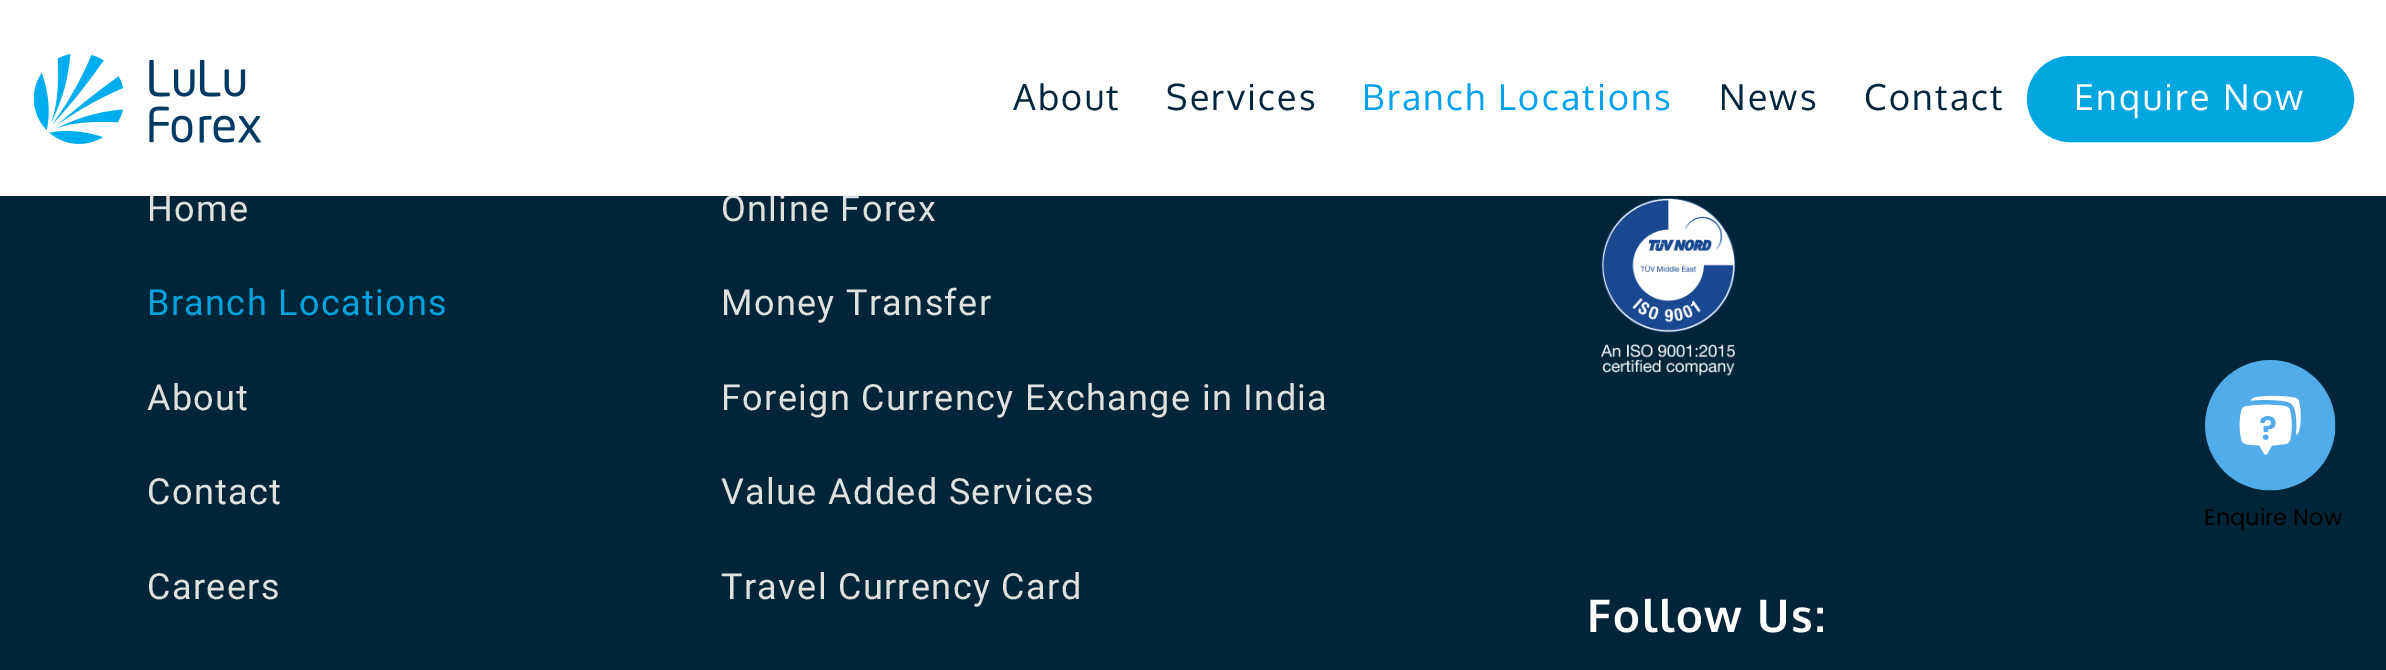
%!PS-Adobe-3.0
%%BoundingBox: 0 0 2386 670
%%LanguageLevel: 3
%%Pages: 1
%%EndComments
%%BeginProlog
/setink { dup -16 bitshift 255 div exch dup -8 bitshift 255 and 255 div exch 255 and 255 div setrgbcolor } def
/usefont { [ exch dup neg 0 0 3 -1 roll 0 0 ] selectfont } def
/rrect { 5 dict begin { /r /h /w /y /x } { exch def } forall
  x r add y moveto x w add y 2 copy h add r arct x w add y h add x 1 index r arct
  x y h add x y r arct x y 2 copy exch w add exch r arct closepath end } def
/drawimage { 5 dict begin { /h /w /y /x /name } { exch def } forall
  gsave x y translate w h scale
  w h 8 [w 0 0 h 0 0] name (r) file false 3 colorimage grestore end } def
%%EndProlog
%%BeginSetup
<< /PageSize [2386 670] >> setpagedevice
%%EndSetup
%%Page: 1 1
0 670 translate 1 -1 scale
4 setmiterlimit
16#002539 setink
0 0 2386 670 rectfill
/Roboto-Regular 36 usefont
16#E0E0E0 setink
147 221 moveto 1.35 0 (Home) ashow
721 221 moveto 1.35 0 (Online Forex) ashow
16#FFFFFF setink
0 0 2386 196 rectfill
(img1.raw) 34 54 227 90 drawimage
/Oxygen-Regular 35.75 usefont
16#00263E setink
1013 110 moveto 2.25 0 (About) ashow
1166 110 moveto 2.25 0 (Services) ashow
16#00A1ED setink
1362 110 moveto 2.25 0 (Branch Locations) ashow
16#00263E setink
1719 110 moveto 2.25 0 (News) ashow
1864 110 moveto 2.25 0 (Contact) ashow
16#00A6E0 setink
2028 57 325 84 42 rrect gsave fill grestore
2 setlinewidth
stroke
16#FFFFFF setink
2074 110 moveto 2.25 0 (Enquire Now) ashow
/Roboto-Regular 36 usefont
16#00A3DB setink
147 315 moveto 1.35 0 (Branch Locations) ashow
16#E0E0E0 setink
147 410 moveto 1.35 0 (About) ashow
147 504 moveto 1.35 0 (Contact) ashow
147 599 moveto 1.35 0 (Careers) ashow
721 315 moveto 1.35 0 (Money Transfer) ashow
721 410 moveto 1.35 0 (Foreign Currency Exchange in India) ashow
721 504 moveto 1.35 0 (Value Added Services) ashow
721 599 moveto 1.35 0 (Travel Currency Card) ashow
(img2.raw) 1601 198 135 178 drawimage
/Oxygen-Bold 45 usefont
16#FFFFFF setink
1587 632 moveto 1.75 0 (Follow Us:) ashow
(img3.raw) 2205 360 131 131 drawimage
/Poppins-Regular 22.5 usefont
16#000000 setink
2204 525 moveto (Enquire Now) show
showpage
%%EOF
